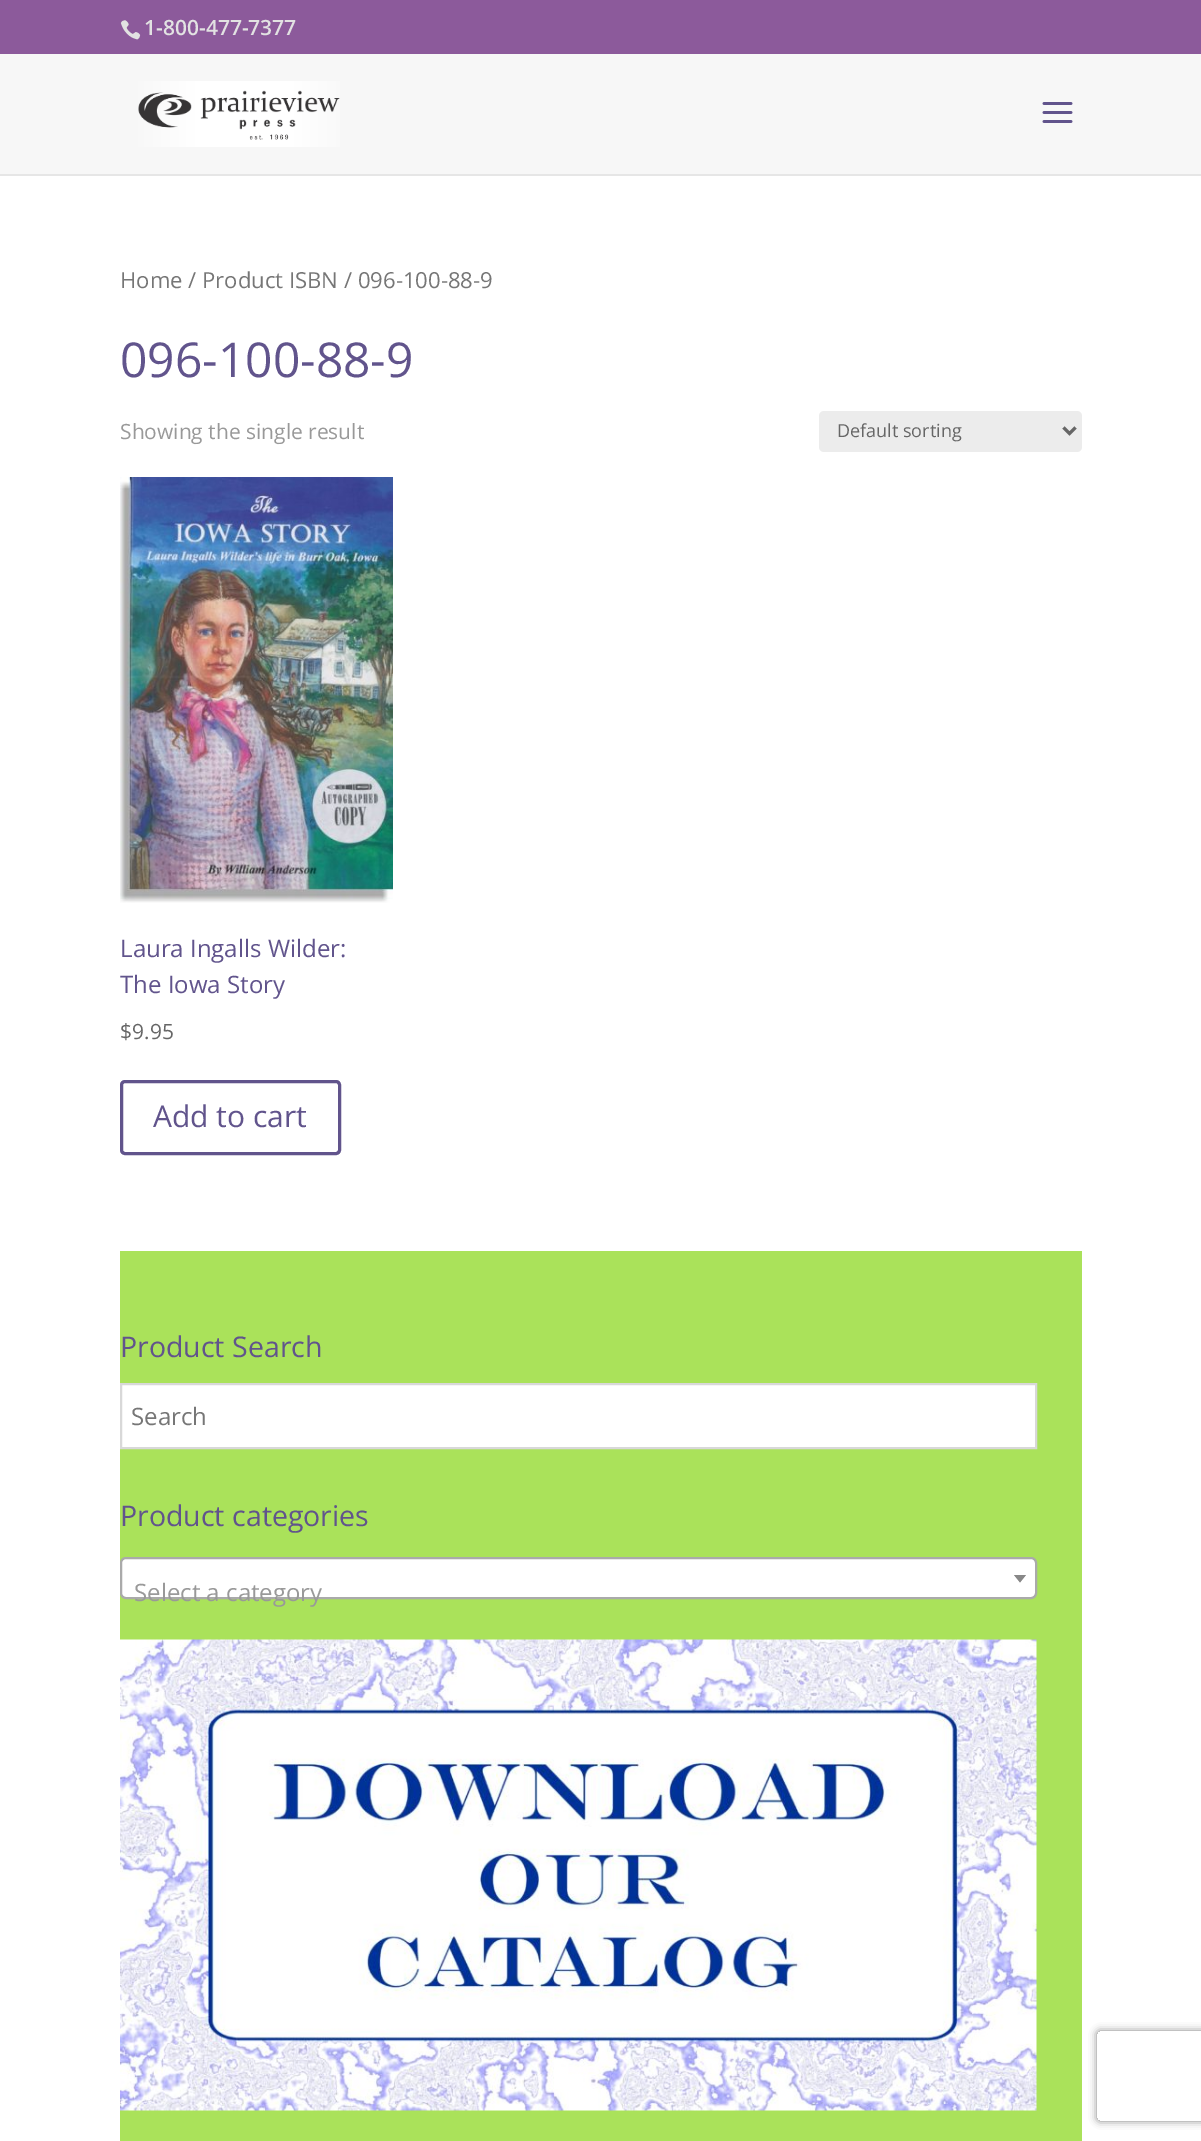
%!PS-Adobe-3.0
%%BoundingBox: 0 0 1201 2141
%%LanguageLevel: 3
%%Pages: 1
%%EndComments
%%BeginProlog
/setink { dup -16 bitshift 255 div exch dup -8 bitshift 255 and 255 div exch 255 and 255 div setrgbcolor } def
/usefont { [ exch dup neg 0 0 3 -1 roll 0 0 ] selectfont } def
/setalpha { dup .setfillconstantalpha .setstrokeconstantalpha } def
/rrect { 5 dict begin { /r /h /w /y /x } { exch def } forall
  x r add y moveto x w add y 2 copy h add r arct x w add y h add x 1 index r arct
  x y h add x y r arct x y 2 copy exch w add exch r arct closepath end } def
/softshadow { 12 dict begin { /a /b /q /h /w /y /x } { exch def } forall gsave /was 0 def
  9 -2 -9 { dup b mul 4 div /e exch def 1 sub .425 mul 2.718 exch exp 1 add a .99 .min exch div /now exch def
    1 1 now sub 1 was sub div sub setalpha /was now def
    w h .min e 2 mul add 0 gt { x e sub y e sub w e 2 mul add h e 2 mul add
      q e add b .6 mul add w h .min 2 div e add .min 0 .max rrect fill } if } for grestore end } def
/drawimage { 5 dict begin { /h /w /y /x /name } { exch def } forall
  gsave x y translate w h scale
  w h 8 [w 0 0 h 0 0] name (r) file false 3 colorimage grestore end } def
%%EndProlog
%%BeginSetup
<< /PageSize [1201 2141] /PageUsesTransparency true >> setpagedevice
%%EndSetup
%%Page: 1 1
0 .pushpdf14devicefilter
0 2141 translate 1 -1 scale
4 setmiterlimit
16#FFFFFF setink
0 0 1201 2141 rectfill
16#8C5A9B setink
0 0 1201 54 rectfill
(img1.raw) 120 20 21 20 drawimage
/OpenSans-SemiBold 21 usefont
16#E2E2E2 setink
144 35 moveto (1-800-477-7377) show
16#E6E6E6 setink
0 174 moveto 0 176 lineto 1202 176 lineto 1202 56 lineto 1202 174 lineto closepath fill
16#F7F7F7 setink
0 54 1201 120 rectfill
(img2.raw) 138 81 202 66 drawimage
(img3.raw) 1042 102 31 21 drawimage
/OpenSans-Regular 22.1 usefont
16#767676 setink
120 288 moveto (Home / Product ISBN / 096-100-88-9) show
/OpenSans-Regular 48 usefont
16#61548C setink
120 377 moveto (096-100-88-9) show
/OpenSans-Regular 21 usefont
16#999999 setink
120 439 moveto (Showing the single result) show
16#ECECEC setink
819 411 263 41 5 rrect fill
16#666666 setink
3 setlinewidth
1063.5 427.5 moveto 1069.5 433.5 lineto 1075.5 427.5 lineto stroke
/OpenSans-Regular 18 usefont
837 437 moveto (Default sorting) show
(img4.raw) 120 477 273 426 drawimage
/OpenSans-Regular 24 usefont
16#61548C setink
120 957 moveto (Laura Ingalls Wilder:) show
120 993 moveto (The Iowa Story) show
/OpenSans-Regular 21 usefont
16#666666 setink
120 1039 moveto ($9.95) show
16#61548C setink
121.5 1081.5 218 72 3.5 rrect stroke
/OpenSans-Regular 30 usefont
153 1127 moveto (Add to cart) show
16#AAE25A setink
120 1251 962 890 rectfill
/OpenSans-Regular 28.5 usefont
16#61548C setink
120 1357 moveto (Product Search) show
16#FFFFFF setink
121 1384 moveto 1036 1384 lineto 1036 1448 lineto 121 1448 lineto closepath gsave fill grestore
16#D8D8D8 setink
2 setlinewidth
stroke
/OpenSans-Regular 24 usefont
16#767676 setink
131 1425 moveto (Search) show
/OpenSans-Regular 28.5 usefont
16#61548C setink
120 1526 moveto (Product categories) show
16#FFFFFF setink
121 1558 915 40 5 rrect gsave fill grestore
16#AAAAAA setink
stroke
16#888888 setink
1014 1575 moveto 1026 1575 lineto 1020 1582.5 lineto closepath fill
/OpenSans-Regular 24 usefont
16#999999 setink
134 1601 moveto (Select a category) show
(img5.raw) 120 1639 917 472 drawimage
gsave
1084 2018 moveto 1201 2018 lineto 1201 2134 lineto 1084 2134 lineto closepath 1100 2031 moveto 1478 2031 lineto 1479.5 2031 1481 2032.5 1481 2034 curveto 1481 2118 lineto 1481 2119.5 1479.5 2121 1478 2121 curveto 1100 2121 lineto 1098.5 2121 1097 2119.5 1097 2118 curveto 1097 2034 lineto 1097 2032.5 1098.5 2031 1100 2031 curveto closepath eoclip newpath
16#808080 setink
1097 2031 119 90 3 4 1 softshadow
grestore
.poppdf14devicefilter showpage
%%EOF
